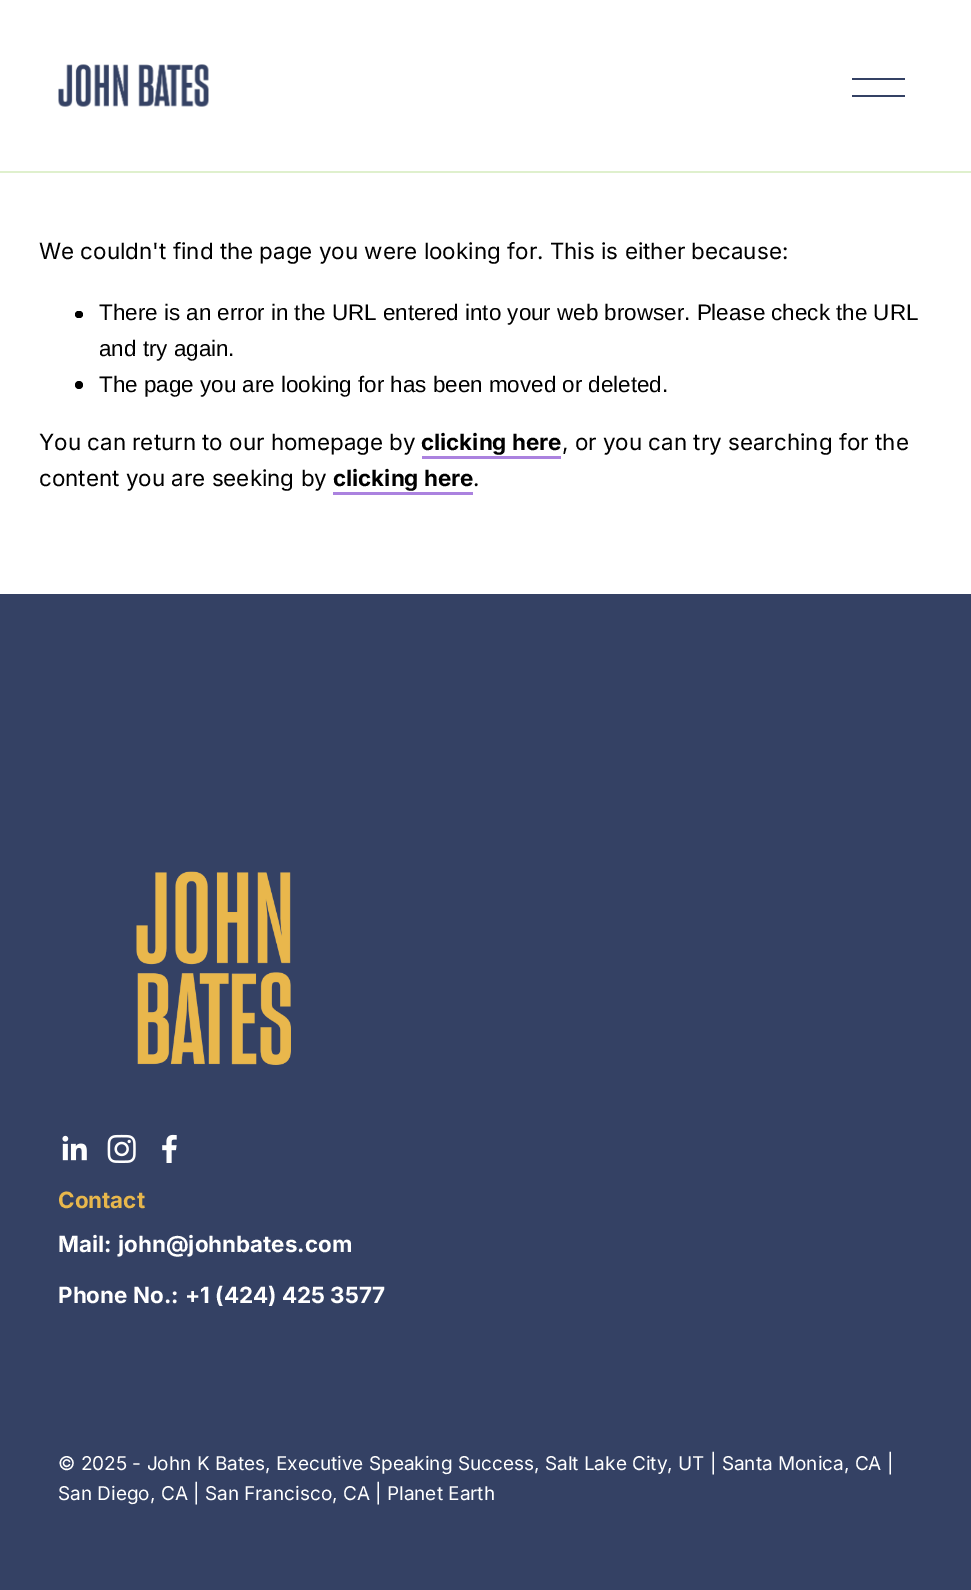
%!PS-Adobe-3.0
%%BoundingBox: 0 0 971 1590
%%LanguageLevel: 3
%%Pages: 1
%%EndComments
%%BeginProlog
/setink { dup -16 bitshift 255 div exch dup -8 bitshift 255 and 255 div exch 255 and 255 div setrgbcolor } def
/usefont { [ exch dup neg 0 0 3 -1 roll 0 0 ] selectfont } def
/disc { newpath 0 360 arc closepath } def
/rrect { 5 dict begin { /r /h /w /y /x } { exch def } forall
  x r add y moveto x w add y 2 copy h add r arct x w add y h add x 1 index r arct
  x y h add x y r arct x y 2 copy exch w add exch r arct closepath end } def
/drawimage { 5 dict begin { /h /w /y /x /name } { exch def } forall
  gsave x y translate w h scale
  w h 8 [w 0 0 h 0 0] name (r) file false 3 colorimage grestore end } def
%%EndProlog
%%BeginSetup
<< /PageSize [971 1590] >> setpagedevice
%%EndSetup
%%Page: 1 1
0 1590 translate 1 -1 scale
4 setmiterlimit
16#FFFFFF setink
0 0 971 1590 rectfill
(img1.raw) 58 64 151 43 drawimage
[
    [852 78 53 2 16#344164]
    [852 95 53 2 16#344164]
    [0 171 971 2 16#DFF0CD]
] { aload pop setink rectfill } forall
/Inter-Regular 22.4 usefont
16#000000 setink
39 259 moveto (We couldn't find the page you were looking for. This is either because:) show
75 311 8 7 3.5 rrect fill
/LiberationSans-Regular 22.4 usefont
99 320 moveto (There is an error in the URL entered into your web browser. Please check the URL) show
99 356 moveto (and try again.) show
79 385 4 disc fill
99 392 moveto (The page you are looking for has been moved or deleted.) show
/Inter-Regular 22.4 usefont
39 450 moveto (You can return to our homepage by) show
/Inter-Bold 22.4 usefont
421 450 moveto (clicking here) show
16#AB82DF setink
422 456 139 3 rectfill
/Inter-Regular 22.4 usefont
16#000000 setink
562 450 moveto (, or you can try searching for the) show
39 486 moveto (content you are seeking by) show
/Inter-Bold 22.4 usefont
333 486 moveto (clicking here) show
16#AB82DF setink
333 492 140 3 rectfill
/Inter-Regular 22.4 usefont
16#000000 setink
473 486 moveto (.) show
16#344164 setink
0 594 971 996 rectfill
(img2.raw) 136 871 155 194 drawimage
(img3.raw) 62 1135 25 26 drawimage
(img4.raw) 107 1134 29 29 drawimage
(img5.raw) 162 1134 15 29 drawimage
/Inter-Bold 22.4 usefont
16#E8B74C setink
58 1208 moveto (Contact) show
16#FFFFFF setink
[
    [(Mail:) 58 1252]
    [(john@johnbates.com) 118 1252]
    [(Phone No.:) 58 1303]
    [(+1 \(424\) 425 3577) 185 1303]
] { aload pop moveto show } forall
/Inter-Regular 19 usefont
58 1470 moveto (© 2025 - John K Bates, Executive Speaking Success, Salt Lake City, UT | Santa Monica, CA |) show
58 1500 moveto (San Diego, CA | San Francisco, CA | Planet Earth) show
showpage
%%EOF
